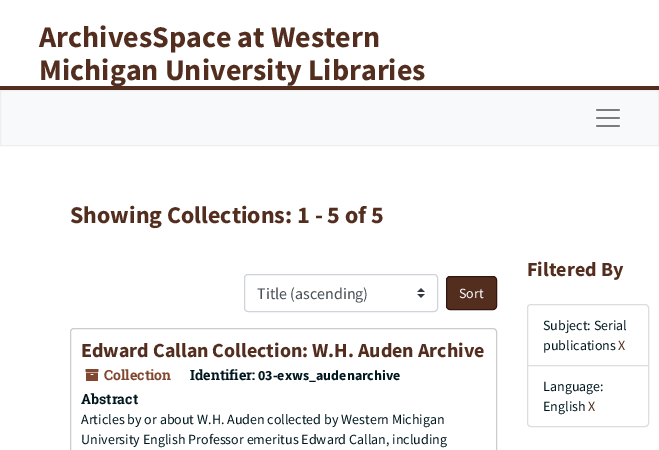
%!PS-Adobe-3.0
%%BoundingBox: 0 0 659 450
%%LanguageLevel: 3
%%Pages: 1
%%EndComments
%%BeginProlog
/setink { dup -16 bitshift 255 div exch dup -8 bitshift 255 and 255 div exch 255 and 255 div setrgbcolor } def
/usefont { [ exch dup neg 0 0 3 -1 roll 0 0 ] selectfont } def
/rrect { 5 dict begin { /r /h /w /y /x } { exch def } forall
  x r add y moveto x w add y 2 copy h add r arct x w add y h add x 1 index r arct
  x y h add x y r arct x y 2 copy exch w add exch r arct closepath end } def
/drawimage { 5 dict begin { /h /w /y /x /name } { exch def } forall
  gsave x y translate w h scale
  w h 8 [w 0 0 h 0 0] name (r) file false 3 colorimage grestore end } def
%%EndProlog
%%BeginSetup
<< /PageSize [659 450] >> setpagedevice
%%EndSetup
%%Page: 1 1
0 450 translate 1 -1 scale
4 setmiterlimit
16#FFFFFF setink
0 0 659 450 rectfill
16#532E1F setink
0 86 659 4 rectfill
/SourceSansPro-Bold 30 usefont
39 47 moveto (ArchivesSpace at Western) show
39 80 moveto (Michigan University Libraries) show
16#F8F9FA setink
0.5 90.5 moveto 658.5 90.5 lineto 658.5 145.5 lineto 0.5 145.5 lineto closepath gsave fill grestore
16#EEEEEE setink
stroke
(img1.raw) 596 109 24 18 drawimage
/SourceSansPro-Bold 24 usefont
16#532E1F setink
70 223 moveto (Showing Collections: 1 - 5 of 5) show
(img2.raw) 417 288 8 10 drawimage
16#CED4DA setink
244.5 274.5 193 37 3.5 rrect stroke
/SourceSansPro-Regular 16 usefont
16#495057 setink
257 299 moveto (Title \(ascending\)) show
16#532E1F setink
446.5 276.5 50 33 3.5 rrect gsave fill grestore
16#31170D setink
stroke
/SourceSansPro-Regular 14 usefont
16#FFFFFF setink
459 298 moveto (Sort) show
16#CCCCCC setink
70.5 328.5 426 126 3.5 rrect stroke
/SourceSansPro-Bold 20 usefont
16#532E1F setink
81 357 moveto (Edward Callan Collection: W.H. Auden Archive) show
(img3.raw) 85 369 14 12 drawimage
/RobotoSlab-Bold 14 usefont
16#824730 setink
104 380 moveto (Collection) show
16#00171F setink
190 380 moveto (Identifier:) show
/SourceSansPro-Bold 14 usefont
258 380 moveto (03-exws_audenarchive) show
/RobotoSlab-Bold 14 usefont
81 404 moveto (Abstract) show
/SourceSansPro-Regular 14 usefont
81 424 moveto (Articles by or about W.H. Auden collected by Western Michigan) show
81 444 moveto (University English Professor emeritus Edward Callan, including) show
/SourceSansPro-Bold 20 usefont
16#532E1F setink
527 276 moveto (Filtered By) show
16#DDDDDD setink
531 304.5 moveto 645 304.5 lineto 647 304.5 648.5 306 648.5 308 curveto 648.5 365.5 lineto 527.5 365.5 lineto 527.5 308 lineto 527.5 306 529 304.5 531 304.5 curveto closepath stroke
/SourceSansPro-Regular 14 usefont
16#00171F setink
543 330 moveto (Subject: Serial) show
543 350 moveto (publications) show
16#532E1F setink
618 350 moveto (X) show
16#FFFFFF setink
527.5 365.5 moveto 648.5 365.5 lineto 648.5 423 lineto 648.5 425 647 426.5 645 426.5 curveto 531 426.5 lineto 529 426.5 527.5 425 527.5 423 curveto closepath gsave fill grestore
16#DDDDDD setink
stroke
16#00171F setink
543 391 moveto (Language:) show
543 411 moveto (English) show
16#532E1F setink
588 411 moveto (X) show
showpage
%%EOF
